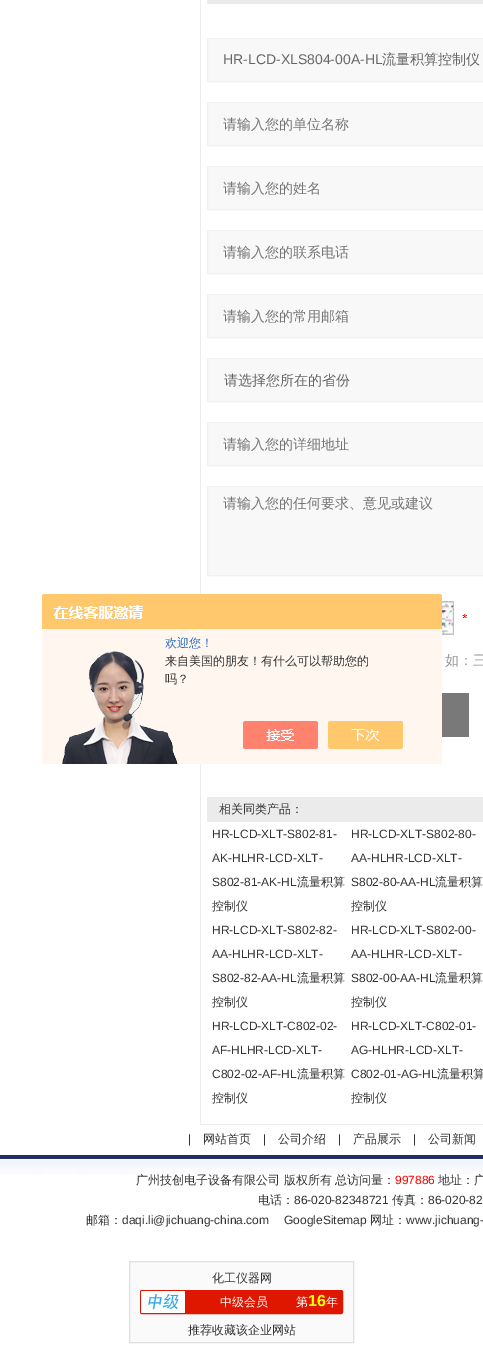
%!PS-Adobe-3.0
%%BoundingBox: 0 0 483 1358
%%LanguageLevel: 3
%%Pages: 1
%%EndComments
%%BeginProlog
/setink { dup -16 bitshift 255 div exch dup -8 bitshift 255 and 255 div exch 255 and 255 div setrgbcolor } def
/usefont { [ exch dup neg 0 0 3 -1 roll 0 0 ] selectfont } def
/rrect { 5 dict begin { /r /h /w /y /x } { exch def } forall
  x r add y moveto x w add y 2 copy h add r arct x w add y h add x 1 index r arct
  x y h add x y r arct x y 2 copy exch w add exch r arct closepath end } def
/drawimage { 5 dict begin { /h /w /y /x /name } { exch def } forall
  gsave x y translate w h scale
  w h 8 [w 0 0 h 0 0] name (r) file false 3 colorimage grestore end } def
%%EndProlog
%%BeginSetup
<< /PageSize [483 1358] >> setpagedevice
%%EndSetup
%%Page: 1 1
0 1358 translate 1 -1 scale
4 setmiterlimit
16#FFFFFF setink
0 0 483 1358 rectfill
[
    [200 1124 283 1 16#ECECEC]
    [200 0 1 1125 16#ECECEC]
    [207 0 276 4 16#EBEBEB]
] { aload pop setink rectfill } forall
16#F8F8F8 setink
207.5 38.5 moveto 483.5 38.5 lineto 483.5 81.5 lineto 207.5 81.5 lineto closepath gsave fill grestore
16#F1F1F1 setink
stroke
/LiberationSans-Regular 14 usefont
16#666666 setink
223 64 moveto (HR-LCD-XLS804-00A-HL) show
/WenQuanYiZenHei-Medium 14 usefont
382 64 moveto (流量积算控制仪) show
16#F8F8F8 setink
207.5 102.5 moveto 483.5 102.5 lineto 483.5 145.5 lineto 207.5 145.5 lineto closepath gsave fill grestore
16#F1F1F1 setink
stroke
16#757575 setink
223 129 moveto (请输入您的单位名称) show
16#F8F8F8 setink
207.5 166.5 moveto 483.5 166.5 lineto 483.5 209.5 lineto 207.5 209.5 lineto closepath gsave fill grestore
16#F1F1F1 setink
stroke
16#757575 setink
223 193 moveto (请输入您的姓名) show
16#F8F8F8 setink
207.5 230.5 moveto 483.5 230.5 lineto 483.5 273.5 lineto 207.5 273.5 lineto closepath gsave fill grestore
16#F1F1F1 setink
stroke
16#757575 setink
223 257 moveto (请输入您的联系电话) show
16#F8F8F8 setink
207.5 294.5 moveto 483.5 294.5 lineto 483.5 337.5 lineto 207.5 337.5 lineto closepath gsave fill grestore
16#F1F1F1 setink
stroke
16#757575 setink
223 321 moveto (请输入您的常用邮箱) show
16#F8F8F8 setink
207.5 358.5 moveto 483.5 358.5 lineto 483.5 401.5 lineto 207.5 401.5 lineto closepath gsave fill grestore
16#F1F1F1 setink
stroke
16#666666 setink
224 385 moveto (请选择您所在的省份) show
16#F8F8F8 setink
207.5 422.5 moveto 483.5 422.5 lineto 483.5 465.5 lineto 207.5 465.5 lineto closepath gsave fill grestore
16#F1F1F1 setink
stroke
16#757575 setink
223 449 moveto (请输入您的详细地址) show
16#F8F8F8 setink
207.5 486.5 moveto 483.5 486.5 lineto 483.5 575.5 lineto 207.5 575.5 lineto closepath gsave fill grestore
16#F1F1F1 setink
stroke
16#757575 setink
223 508 moveto (请输入您的任何要求、意见或建议) show
(img1.raw) 462 614 5 4 drawimage
(img2.raw) 442 601 12 34 drawimage
16#999999 setink
445 665 moveto (如：三) show
16#797979 setink
442 693 27 44 rectfill
16#EBEBEB setink
207 797 276 25 rectfill
/WenQuanYiZenHei-Medium 12 usefont
16#333333 setink
219 813 moveto (相关同类产品：) show
/LiberationSans-Regular 12 usefont
[
    [(HR-LCD-XLT-S802-81-) 212 838]
    [(AK-HLHR-LCD-XLT-) 212 862]
    [(S802-81-AK-HL) 212 886]
] { aload pop moveto show } forall
/WenQuanYiZenHei-Medium 12 usefont
297 886 moveto (流量积算) show
212 910 moveto (控制仪) show
/LiberationSans-Regular 12 usefont
[
    [(HR-LCD-XLT-S802-80-) 351 838]
    [(AA-HLHR-LCD-XLT-) 351 862]
    [(S802-80-AA-HL) 351 886]
] { aload pop moveto show } forall
/WenQuanYiZenHei-Medium 12 usefont
435 886 moveto (流量积算) show
351 910 moveto (控制仪) show
/LiberationSans-Regular 12 usefont
[
    [(HR-LCD-XLT-S802-82-) 212 934]
    [(AA-HLHR-LCD-XLT-) 212 958]
    [(S802-82-AA-HL) 212 982]
] { aload pop moveto show } forall
/WenQuanYiZenHei-Medium 12 usefont
297 982 moveto (流量积算) show
212 1006 moveto (控制仪) show
/LiberationSans-Regular 12 usefont
[
    [(HR-LCD-XLT-S802-00-) 351 934]
    [(AA-HLHR-LCD-XLT-) 351 958]
    [(S802-00-AA-HL) 351 982]
] { aload pop moveto show } forall
/WenQuanYiZenHei-Medium 12 usefont
435 982 moveto (流量积算) show
351 1006 moveto (控制仪) show
/LiberationSans-Regular 12 usefont
[
    [(HR-LCD-XLT-C802-02-) 212 1030]
    [(AF-HLHR-LCD-XLT-) 212 1054]
    [(C802-02-AF-HL) 212 1078]
] { aload pop moveto show } forall
/WenQuanYiZenHei-Medium 12 usefont
297 1078 moveto (流量积算) show
212 1102 moveto (控制仪) show
/LiberationSans-Regular 12 usefont
[
    [(HR-LCD-XLT-C802-01-) 351 1030]
    [(AG-HLHR-LCD-XLT-) 351 1054]
    [(C802-01-AG-HL) 351 1078]
] { aload pop moveto show } forall
/WenQuanYiZenHei-Medium 12 usefont
437 1078 moveto (流量积算) show
351 1102 moveto (控制仪) show
(img3.raw) 42 594 400 170 drawimage
16#2E6EC6 setink
165 647 moveto (欢迎您！) show
16#333333 setink
165 665 moveto (来自美国的朋友！有什么可以帮助您的) show
165 683 moveto (吗？) show
/LiberationSans-Regular 12 usefont
188 1143 moveto (|) show
/WenQuanYiZenHei-Medium 12 usefont
203 1143 moveto (网站首页) show
/LiberationSans-Regular 12 usefont
263 1143 moveto (|) show
/WenQuanYiZenHei-Medium 12 usefont
278 1143 moveto (公司介绍) show
/LiberationSans-Regular 12 usefont
338 1143 moveto (|) show
/WenQuanYiZenHei-Medium 12 usefont
353 1143 moveto (产品展示) show
/LiberationSans-Regular 12 usefont
413 1143 moveto (|) show
/WenQuanYiZenHei-Medium 12 usefont
428 1143 moveto (公司新闻) show
(img4.raw) 0 1155 483 19 drawimage
136 1184 moveto (广州技创电子设备有限公司 版权所有) show
335 1184 moveto (总访问量：) show
/LiberationSans-Regular 12 usefont
16#FF0000 setink
395 1184 moveto (997886) show
/WenQuanYiZenHei-Medium 12 usefont
16#333333 setink
438 1184 moveto (地址：广) show
258 1204 moveto (电话：) show
/LiberationSans-Regular 12 usefont
294 1204 moveto (86-020-82348721) show
/WenQuanYiZenHei-Medium 12 usefont
392 1204 moveto (传真：) show
/LiberationSans-Regular 12 usefont
428 1204 moveto (86-020-82) show
/WenQuanYiZenHei-Medium 12 usefont
86 1224 moveto (邮箱：) show
/LiberationSans-Regular 12 usefont
122 1224 moveto (daqi.li@jichuang-china.com) show
284 1224 moveto (GoogleSitemap) show
/WenQuanYiZenHei-Medium 12 usefont
370 1224 moveto (网址：) show
/LiberationSans-Regular 12 usefont
406 1224 moveto (www.jichuang-) show
16#FAFAFA setink
129.5 1261.5 moveto 353.5 1261.5 lineto 353.5 1342.5 lineto 129.5 1342.5 lineto closepath gsave fill grestore
16#DFDFDF setink
stroke
/WenQuanYiZenHei-Medium 12 usefont
16#333333 setink
212 1282 moveto (化工仪器网) show
16#DF1700 setink
140.5 1290.5 202 23 1.5 rrect gsave fill grestore
stroke
16#FFFFFF setink
142 1291 moveto 185 1291 lineto 185 1313 lineto 142 1313 lineto 141.5 1313 141 1312.5 141 1312 curveto 141 1292 lineto 141 1291.5 141.5 1291 142 1291 curveto closepath fill
(img5.raw) 148 1294 31 16 drawimage
220 1306 moveto (中级会员) show
296 1306 moveto (第) show
/LiberationSans-Bold 16 usefont
16#FCFF00 setink
308 1306 moveto (16) show
/WenQuanYiZenHei-Medium 12 usefont
16#FFFFFF setink
326 1306 moveto (年) show
16#333333 setink
188 1334 moveto (推荐收藏该企业网站) show
showpage
%%EOF
